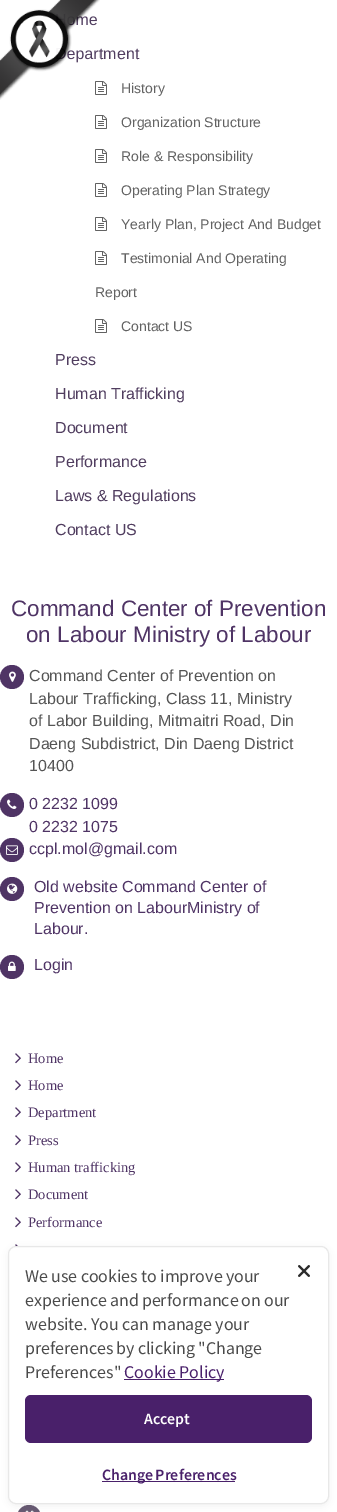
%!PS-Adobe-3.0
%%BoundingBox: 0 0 337 1512
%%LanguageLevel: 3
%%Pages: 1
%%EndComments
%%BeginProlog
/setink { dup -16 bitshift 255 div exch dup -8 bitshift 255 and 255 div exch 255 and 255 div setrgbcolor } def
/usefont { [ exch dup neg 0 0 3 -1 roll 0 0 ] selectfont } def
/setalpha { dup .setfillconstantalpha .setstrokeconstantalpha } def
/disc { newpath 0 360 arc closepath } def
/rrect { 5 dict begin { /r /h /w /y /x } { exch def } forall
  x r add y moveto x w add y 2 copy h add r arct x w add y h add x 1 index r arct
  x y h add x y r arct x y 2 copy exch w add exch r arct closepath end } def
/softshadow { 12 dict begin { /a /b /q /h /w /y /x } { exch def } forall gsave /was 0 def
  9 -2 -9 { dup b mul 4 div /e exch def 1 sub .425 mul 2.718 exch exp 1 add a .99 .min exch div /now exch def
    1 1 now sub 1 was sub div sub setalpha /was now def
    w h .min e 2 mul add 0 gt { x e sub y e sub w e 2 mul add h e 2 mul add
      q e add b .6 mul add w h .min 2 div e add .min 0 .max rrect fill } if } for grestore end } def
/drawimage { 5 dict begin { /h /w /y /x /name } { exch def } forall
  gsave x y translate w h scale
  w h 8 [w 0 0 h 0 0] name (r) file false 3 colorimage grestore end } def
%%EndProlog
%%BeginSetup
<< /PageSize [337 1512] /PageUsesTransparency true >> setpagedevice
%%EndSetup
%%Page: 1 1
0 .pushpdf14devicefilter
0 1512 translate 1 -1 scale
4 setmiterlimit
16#FFFFFF setink
0 0 337 1512 rectfill
/LiberationSans-Regular 16 usefont
16#503D5F setink
75 25 moveto (me) show
67 59 moveto (epartment) show
(img2.raw) 95 81 12 14 drawimage
(img1.raw) 0 0 100 100 drawimage
/LiberationSans-Regular 14 usefont
16#626262 setink
121 93 moveto (History) show
(img2.raw) 95 115 12 14 drawimage
121 127 moveto (Organization Structure) show
(img2.raw) 95 149 12 14 drawimage
121 161 moveto (Role & Responsibility) show
(img2.raw) 95 183 12 14 drawimage
121 195 moveto (Operating Plan Strategy) show
(img2.raw) 95 217 12 14 drawimage
121 229 moveto (Yearly Plan, Project And Budget) show
(img2.raw) 95 251 12 14 drawimage
121 263 moveto (Testimonial And Operating) show
95 297 moveto (Report) show
(img2.raw) 95 319 12 14 drawimage
121 331 moveto (Contact US) show
/LiberationSans-Regular 16 usefont
16#503D5F setink
[
    [(Press) 55 365]
    [(Human Trafficking) 55 399]
    [(Document) 55 433]
    [(Performance) 55 467]
    [(Laws & Regulations) 55 501]
    [(Contact US) 55 535]
] { aload pop moveto show } forall
/LiberationSans-Regular 22.4 usefont
16#4F3465 setink
11 616 moveto (Command Center of Prevention) show
26 642 moveto (on Labour Ministry of Labour) show
12 677 12 disc fill
(img3.raw) 9 671 7 11 drawimage
/LiberationSans-Regular 16 usefont
16#555555 setink
[
    [(Command Center of Prevention on) 29 681]
    [(Labour Trafficking, Class 11, Ministry) 29 704]
    [(of Labor Building, Mitmaitri Road, Din) 29 726]
    [(Daeng Subdistrict, Din Daeng District) 29 749]
    [(10400) 29 771]
] { aload pop moveto show } forall
16#4F3465 setink
12 805 12 disc fill
(img4.raw) 7 799 10 10 drawimage
29 809 moveto (0 2232 1099) show
29 832 moveto (0 2232 1075) show
12 850 12 disc fill
(img5.raw) 6 845 12 10 drawimage
29 854 moveto (ccpl.mol@gmail.com) show
12 889 12 disc fill
(img6.raw) 7 883 11 11 drawimage
[
    [(Old website Command Center of) 34 892]
    [(Prevention on LabourMinistry of) 34 913]
    [(Labour.) 34 934]
] { aload pop moveto show } forall
12 967 12 disc fill
(img7.raw) 8 961 8 10 drawimage
34 970 moveto (Login) show
(img8.raw) 15 1053 6 11 drawimage
/LiberationSerif-Regular 14.5 usefont
28 1063 moveto (Home) show
(img8.raw) 15 1080 6 11 drawimage
28 1090 moveto (Home) show
(img8.raw) 15 1107 6 11 drawimage
28 1117 moveto (Department) show
(img8.raw) 15 1135 6 11 drawimage
28 1145 moveto (Press) show
(img8.raw) 15 1162 6 11 drawimage
28 1172 moveto (Human trafficking) show
(img8.raw) 15 1189 6 11 drawimage
28 1199 moveto (Document) show
(img8.raw) 15 1217 6 11 drawimage
28 1227 moveto (Performance) show
(img9.raw) 15 1244 3 2 drawimage
16#675A72 setink
17 1505 24 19 12 rrect fill
(img10.raw) 25 1510 9 2 drawimage
16#000000 setink
8 1248 321 258 8 4 0.05 softshadow
16#FFFFFF setink
8.5 1246.5 320 257 7.5 rrect gsave fill grestore
16#E8E8E8 setink
stroke
/NotoSansJP-Regular 16 usefont
16#4A4A4A setink
25 1282 moveto -0.25 0 32 (We use cookies to improve your) widthshow
25 1306 moveto -0.5 0 32 (experience and performance on our) widthshow
25 1330 moveto -0.5 0 32 (website. You can manage your) widthshow
25 1354 moveto -0.5 0 32 (preferences by clicking "Change) widthshow
25 1378 moveto (Preferences") show
16#49206A setink
124 1379 100 1 rectfill
124 1378 moveto (Cookie Policy) show
25 1395 287 48 6 rrect fill
/NotoSansJP-SemiBold 14 usefont
16#FFFFFF setink
144 1424 moveto (Accept) show
16#49206A setink
102 1481 133 1 rectfill
102 1480 moveto -1 0 32 (Change Preferences) widthshow
(img11.raw) 298 1265 12 12 drawimage
.poppdf14devicefilter showpage
%%EOF
